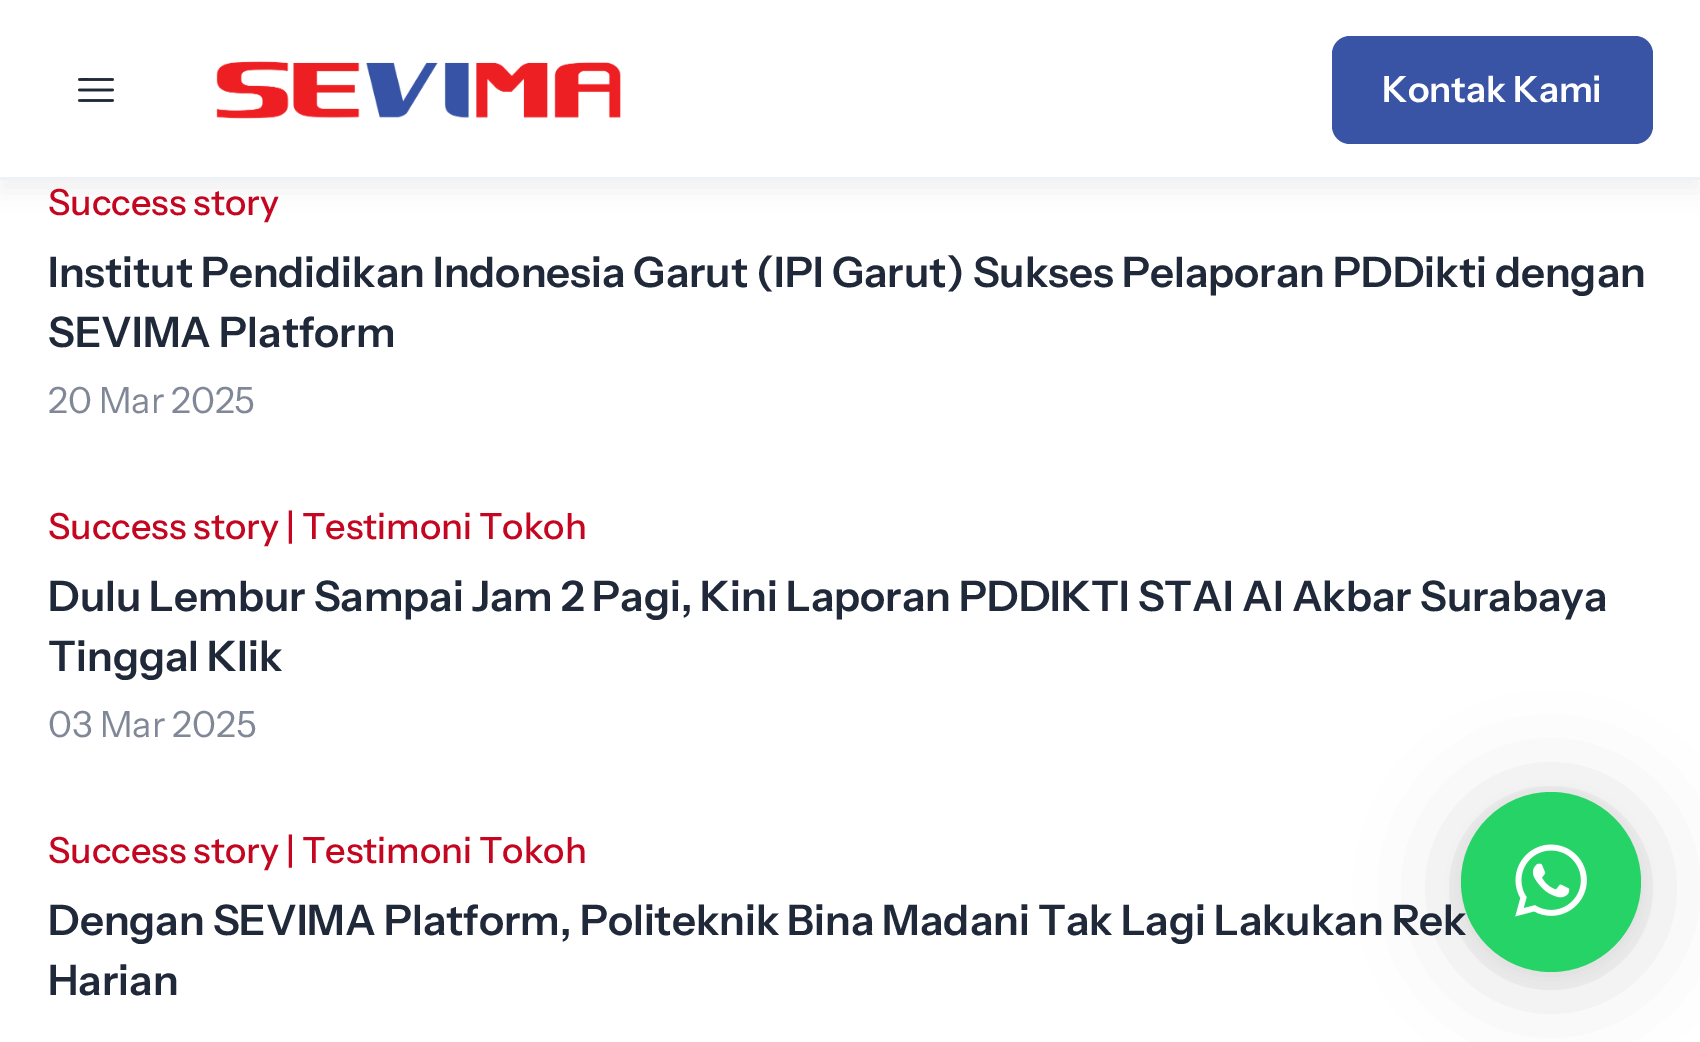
%!PS-Adobe-3.0
%%BoundingBox: 0 0 1700 1042
%%LanguageLevel: 3
%%Pages: 1
%%EndComments
%%BeginProlog
/setink { dup -16 bitshift 255 div exch dup -8 bitshift 255 and 255 div exch 255 and 255 div setrgbcolor } def
/usefont { [ exch dup neg 0 0 3 -1 roll 0 0 ] selectfont } def
/setalpha { dup .setfillconstantalpha .setstrokeconstantalpha } def
/disc { newpath 0 360 arc closepath } def
/rrect { 5 dict begin { /r /h /w /y /x } { exch def } forall
  x r add y moveto x w add y 2 copy h add r arct x w add y h add x 1 index r arct
  x y h add x y r arct x y 2 copy exch w add exch r arct closepath end } def
/softshadow { 12 dict begin { /a /b /q /h /w /y /x } { exch def } forall gsave /was 0 def
  9 -2 -9 { dup b mul 4 div /e exch def 1 sub .425 mul 2.718 exch exp 1 add a .99 .min exch div /now exch def
    1 1 now sub 1 was sub div sub setalpha /was now def
    w h .min e 2 mul add 0 gt { x e sub y e sub w e 2 mul add h e 2 mul add
      q e add b .6 mul add w h .min 2 div e add .min 0 .max rrect fill } if } for grestore end } def
/drawimage { 5 dict begin { /h /w /y /x /name } { exch def } forall
  gsave x y translate w h scale
  w h 8 [w 0 0 h 0 0] name (r) file false 3 colorimage grestore end } def
%%EndProlog
%%BeginSetup
<< /PageSize [1700 1042] /PageUsesTransparency true >> setpagedevice
%%EndSetup
%%Page: 1 1
0 .pushpdf14devicefilter
0 1042 translate 1 -1 scale
4 setmiterlimit
16#FFFFFF setink
0 0 1700 1042 rectfill
16#000000 setink
0 12 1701 180 0 12 0.06 softshadow
16#FFFFFF setink
0 0 1700 177 rectfill
16#EEF2F6 setink
0 177 1700 3 rectfill
(img1.raw) 78 78 36 24 drawimage
(img2.raw) 216 61 405 58 drawimage
16#3954A4 setink
1332 36 321 108 18 rrect fill
/InstrumentSans-SemiBold 36 usefont
16#FFFFFF setink
1382 102 moveto (Kontak Kami) show
/InstrumentSans-Medium 36 usefont
16#C50620 setink
48 215 moveto (Success story) show
/InstrumentSans-SemiBold 42 usefont
16#202939 setink
48 287 moveto (Institut Pendidikan Indonesia Garut \(IPI Garut\) Sukses Pelaporan PDDikti dengan) show
48 347 moveto (SEVIMA Platform) show
/InstrumentSans-Regular 36 usefont
16#808897 setink
48 413 moveto (20 Mar 2025) show
/InstrumentSans-Medium 36 usefont
16#C50620 setink
48 539 moveto (Success story | Testimoni Tokoh) show
/InstrumentSans-SemiBold 42 usefont
16#202939 setink
48 611 moveto (Dulu Lembur Sampai Jam 2 Pagi, Kini Laporan PDDIKTI STAI Al Akbar Surabaya) show
48 671 moveto (Tinggal Klik) show
/InstrumentSans-Regular 36 usefont
16#808897 setink
48 737 moveto (03 Mar 2025) show
/InstrumentSans-Medium 36 usefont
16#C50620 setink
48 863 moveto (Success story | Testimoni Tokoh) show
/InstrumentSans-SemiBold 42 usefont
16#202939 setink
48 935 moveto (Dengan SEVIMA Platform, Politeknik Bina Madani Tak Lagi Lakukan Rek) show
48 995 moveto (Harian) show
16#000000 setink
1461 798 180 180 90 48 0.16 softshadow
1461 795 180 180 90 9 0.06 softshadow
16#25D366 setink
1551 882 90 disc fill
(img3.raw) 1515 844 72 73 drawimage
.poppdf14devicefilter showpage
%%EOF
